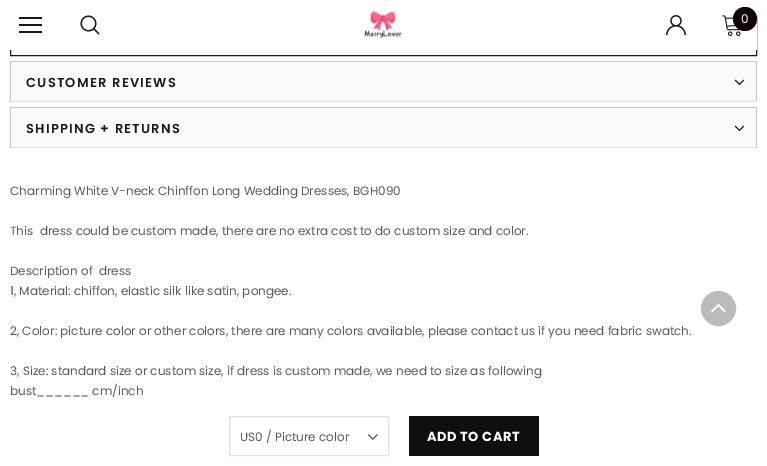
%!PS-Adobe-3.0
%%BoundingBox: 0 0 767 466
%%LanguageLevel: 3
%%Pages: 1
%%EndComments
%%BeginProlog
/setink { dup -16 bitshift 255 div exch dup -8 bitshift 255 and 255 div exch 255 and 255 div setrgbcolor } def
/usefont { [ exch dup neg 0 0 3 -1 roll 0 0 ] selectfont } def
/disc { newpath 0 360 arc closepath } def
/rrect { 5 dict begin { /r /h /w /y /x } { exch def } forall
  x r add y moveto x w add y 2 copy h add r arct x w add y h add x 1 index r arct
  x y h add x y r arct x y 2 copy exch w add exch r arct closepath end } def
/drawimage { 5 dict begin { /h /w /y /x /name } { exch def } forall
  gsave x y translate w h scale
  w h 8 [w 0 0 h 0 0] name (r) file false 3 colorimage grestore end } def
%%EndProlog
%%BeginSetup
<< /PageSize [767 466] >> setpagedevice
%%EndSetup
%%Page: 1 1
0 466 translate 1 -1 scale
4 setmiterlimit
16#FFFFFF setink
0 0 767 466 rectfill
16#191919 setink
10.5 15.5 746 40 rectstroke
[
    [10 15 747 35 16#FFFFFF]
    [19 24 23 2 16#191919]
    [19 17 23 2 16#191919]
    [19 31 23 2 16#191919]
] { aload pop setink rectfill } forall
(img1.raw) 80 15 20 20 drawimage
(img2.raw) 364 11 38 27 drawimage
(img3.raw) 666 15 20 20 drawimage
(img4.raw) 722 15 19 21 drawimage
16#0E0101 setink
745 19 12 disc fill
/Poppins-Regular 12 usefont
16#FFFFFF setink
741 23 moveto (0) show
[
    [11 62 745 39 16#FAFAFA]
    [10 61 747 1 16#C7C7C7]
    [756 61 1 41 16#C7C7C7]
    [10 101 747 1 16#E1E1E1]
    [10 61 1 41 16#C7C7C7]
] { aload pop setink rectfill } forall
/Poppins-SemiBold 13 usefont
16#191919 setink
26 87 moveto 1.25 0 (CUSTOMER REVIEWS) ashow
(img5.raw) 734 79 11 7 drawimage
[
    [11 108 745 39 16#FAFAFA]
    [10 107 747 1 16#C7C7C7]
    [756 107 1 41 16#C7C7C7]
    [10 147 747 1 16#E1E1E1]
    [10 107 1 41 16#C7C7C7]
] { aload pop setink rectfill } forall
16#191919 setink
26 133 moveto 1.25 0 (SHIPPING + RETURNS) ashow
(img5.raw) 734 125 11 7 drawimage
/Poppins-Regular 12 usefont
16#5A5A5A setink
[
    [(Charming White V-neck Chinffon Long Wedding Dresses, BGH090) 10 195]
    [(This  dress could be custom made, there are no extra cost to do custom size and color.) 10 235]
    [(Description of  dress) 10 275]
    [(1, Material: chiffon, elastic silk like satin, pongee.) 10 295]
    [(2, Color: picture color or other colors, there are many colors available, please contact us if you need fabric swatch.) 10 335]
    [(3, Size: standard size or custom size, if dress is custom made, we need to size as following) 10 375]
    [(bust______ cm/inch) 10 395]
] { aload pop moveto show } forall
16#E0E0E0 setink
229.5 416.5 159 39 1.5 rrect stroke
16#5A5A5A setink
240 441 moveto (US0 / Picture color) show
(img6.raw) 367 434 11 6 drawimage
16#0F0F0F setink
409 416 130 40 rectfill
/Poppins-Bold 13 usefont
16#FFFFFF setink
427 441 moveto 0.5 0 (ADD TO CART) ashow
16#BBBBBB setink
718.5 308.5 17 disc gsave fill grestore
stroke
(img7.raw) 711 303 15 9 drawimage
showpage
%%EOF
